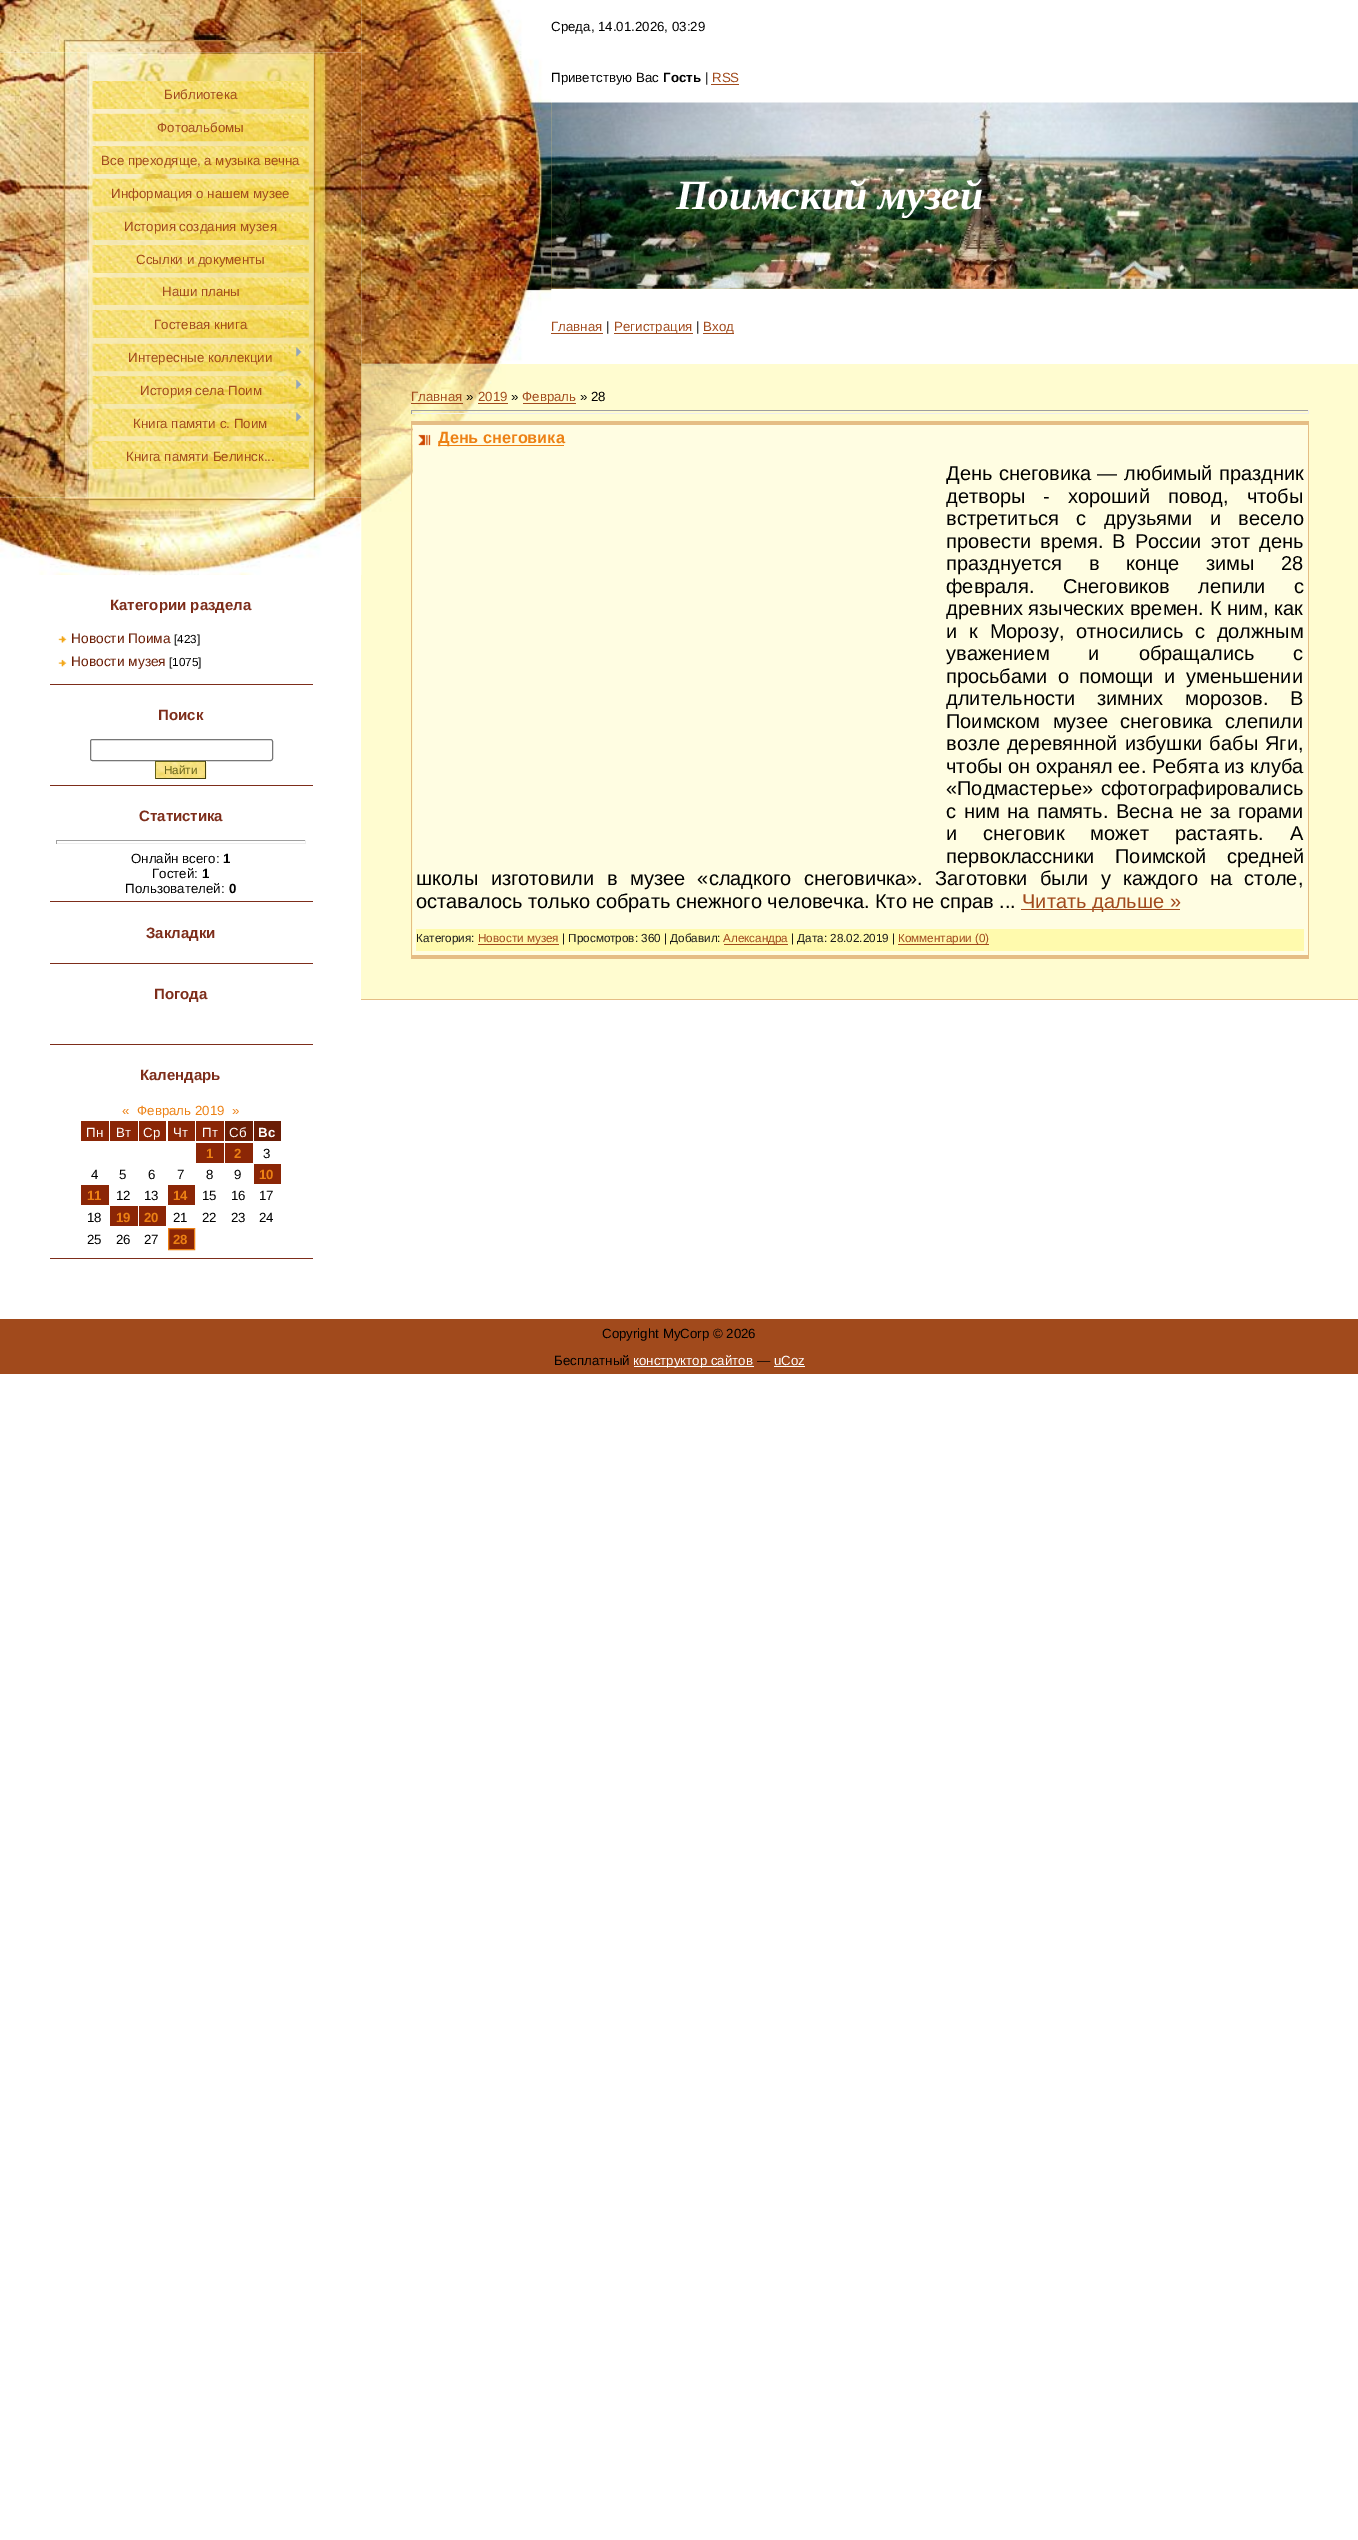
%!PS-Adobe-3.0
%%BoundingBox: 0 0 1358 2540
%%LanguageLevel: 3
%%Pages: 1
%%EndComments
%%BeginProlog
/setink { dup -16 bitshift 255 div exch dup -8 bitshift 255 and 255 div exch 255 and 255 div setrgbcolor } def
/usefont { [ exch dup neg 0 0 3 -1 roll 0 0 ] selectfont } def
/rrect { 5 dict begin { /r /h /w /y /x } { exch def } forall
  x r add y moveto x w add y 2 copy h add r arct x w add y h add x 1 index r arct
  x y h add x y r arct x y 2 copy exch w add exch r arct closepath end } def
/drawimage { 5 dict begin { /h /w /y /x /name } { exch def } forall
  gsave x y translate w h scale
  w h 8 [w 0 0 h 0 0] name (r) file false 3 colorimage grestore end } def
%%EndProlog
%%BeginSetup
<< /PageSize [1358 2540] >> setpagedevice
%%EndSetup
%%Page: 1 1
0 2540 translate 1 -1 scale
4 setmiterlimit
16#FFFFFF setink
0 0 1358 2540 rectfill
(img3.raw) 87 52 227 446 drawimage
(img1.raw) 0 0 362 53 drawimage
(img2.raw) 0 52 88 446 drawimage
16#F2DA6C setink
93 81 216 28 rectfill
(img4.raw) 92 81 217 28 drawimage
/LiberationSans-Regular 13.3 usefont
16#A14A1C setink
164 99 moveto (Библиотека) show
(img5.raw) 92 113 217 29 drawimage
157 132 moveto (Фотоальбомы) show
16#F2DA6C setink
93 146 216 28 rectfill
(img6.raw) 92 146 217 28 drawimage
16#A14A1C setink
101 165 moveto (Все преходяще, а музыка вечна) show
(img7.raw) 92 178 217 29 drawimage
111 198 moveto (Информация о нашем музее) show
(img8.raw) 92 212 217 28 drawimage
124 231 moveto (История создания музея) show
16#F2DA6C setink
93 245 216 28 rectfill
(img9.raw) 92 245 217 28 drawimage
16#A14A1C setink
136 264 moveto (Ссылки и документы) show
(img10.raw) 92 277 217 28 drawimage
162 296 moveto (Наши планы) show
16#F2DA6C setink
93 310 216 28 rectfill
(img11.raw) 92 310 217 28 drawimage
16#A14A1C setink
154 329 moveto (Гостевая книга) show
(img12.raw) 92 343 217 29 drawimage
128 362 moveto (Интересные коллекции) show
(img13.raw) 296 347 6 10 drawimage
16#F2DA6C setink
93 376 216 28 rectfill
(img14.raw) 92 376 217 28 drawimage
16#A14A1C setink
140 395 moveto (История села Поим) show
(img15.raw) 296 380 6 9 drawimage
(img16.raw) 92 408 217 29 drawimage
(img13.raw) 296 412 6 10 drawimage
133 428 moveto (Книга памяти с. Поим) show
16#F2DA6C setink
93 441 216 28 rectfill
(img17.raw) 92 441 217 28 drawimage
16#A14A1C setink
126 461 moveto (Книга памяти Белинск...) show
16#FFFCD0 setink
361 364 997 635 rectfill
(img25.raw) 361 363 145 149 drawimage
(img18.raw) 313 52 49 446 drawimage
(img19.raw) 0 497 362 78 drawimage
16#7D2D1A setink
50 684 263 1 rectfill
/LiberationSans-Bold 15 usefont
110 610 moveto (Категории раздела) show
(img20.raw) 58 636 9 7 drawimage
/LiberationSans-Regular 13.75 usefont
16#6B1D05 setink
71 643 moveto (Новости Поима) show
/LiberationSans-Regular 11.7 usefont
16#000000 setink
174 643 moveto ([423]) show
(img21.raw) 58 659 9 8 drawimage
/LiberationSans-Regular 13.75 usefont
16#6B1D05 setink
71 666 moveto (Новости музея) show
/LiberationSans-Regular 11.7 usefont
16#000000 setink
169 666 moveto ([1075]) show
16#7D2D1A setink
50 785 263 1 rectfill
/LiberationSans-Bold 15 usefont
158 720 moveto (Поиск) show
16#767676 setink
90.5 739.5 182 21 2 rrect stroke
(img22.raw) 156 761 51 18 drawimage
[
    [155 761 51 1 16#656219]
    [205 761 1 18 16#434111]
    [155 778 51 1 16#434111]
    [155 761 1 18 16#656219]
] { aload pop setink rectfill } forall
/LiberationSans-Regular 11.7 usefont
164 774 moveto (Найти) show
16#7D2D1A setink
50 901 263 1 rectfill
/LiberationSans-Bold 15 usefont
139 821 moveto (Статистика) show
[
    [56 840 250 1 16#9F9F9F]
    [305 840 1 4 16#EEEEEE]
    [56 843 250 1 16#EEEEEE]
    [56 840 1 4 16#9F9F9F]
] { aload pop setink rectfill } forall
/LiberationSans-Regular 13.3 usefont
16#000000 setink
131 863 moveto (Онлайн всего:) show
/LiberationSans-Bold 13.3 usefont
223 863 moveto (1) show
/LiberationSans-Regular 13.3 usefont
152 878 moveto (Гостей:) show
/LiberationSans-Bold 13.3 usefont
202 878 moveto (1) show
/LiberationSans-Regular 13.3 usefont
125 893 moveto (Пользователей:) show
/LiberationSans-Bold 13.3 usefont
229 893 moveto (0) show
16#7D2D1A setink
50 963 263 1 rectfill
/LiberationSans-Bold 15 usefont
146 938 moveto (Закладки) show
50 1044 263 1 rectfill
154 999 moveto (Погода) show
50 1258 263 1 rectfill
140 1080 moveto (Календарь) show
/LiberationSans-Regular 13.3 usefont
16#ED8114 setink
[
    [(«) 122 1115]
    [(Февраль 2019) 137 1115]
    [(») 232 1115]
] { aload pop moveto show } forall
16#8B2606 setink
81 1121 28 20 rectfill
16#FFFFFF setink
86 1137 moveto (Пн) show
16#8B2606 setink
110 1121 28 20 rectfill
16#FFFFFF setink
116 1137 moveto (Вт) show
16#8B2606 setink
139 1121 27 20 rectfill
16#FFFFFF setink
143 1137 moveto (Ср) show
16#8B2606 setink
168 1121 27 20 rectfill
16#FFFFFF setink
173 1137 moveto (Чт) show
16#8B2606 setink
196 1121 28 20 rectfill
16#FFFFFF setink
202 1137 moveto (Пт) show
16#6A1D05 setink
225 1121 28 20 rectfill
16#FFFFFF setink
229 1137 moveto (Сб) show
16#6A1D05 setink
254 1121 27 20 rectfill
/LiberationSans-Bold 13.3 usefont
16#FFFFFF setink
258 1137 moveto (Вс) show
16#8B2606 setink
196 1143 28 20 rectfill
16#ED8114 setink
206 1158 moveto (1) show
16#8B2606 setink
225 1143 28 20 rectfill
16#ED8114 setink
234 1158 moveto (2) show
/LiberationSans-Regular 13.3 usefont
16#000000 setink
[
    [(3) 263 1158]
    [(4) 91 1179]
    [(5) 119 1179]
    [(6) 148 1179]
    [(7) 177 1179]
    [(8) 206 1179]
    [(9) 234 1179]
] { aload pop moveto show } forall
16#8B2606 setink
254 1164 27 20 rectfill
/LiberationSans-Bold 13.3 usefont
16#ED8114 setink
259 1179 moveto (10) show
16#8B2606 setink
81 1185 28 20 rectfill
16#ED8114 setink
87 1200 moveto (11) show
/LiberationSans-Regular 13.3 usefont
16#000000 setink
116 1200 moveto (12) show
144 1200 moveto (13) show
16#8B2606 setink
168 1185 27 20 rectfill
/LiberationSans-Bold 13.3 usefont
16#ED8114 setink
173 1200 moveto (14) show
/LiberationSans-Regular 13.3 usefont
16#000000 setink
[
    [(15) 202 1200]
    [(16) 231 1200]
    [(17) 259 1200]
    [(18) 87 1222]
] { aload pop moveto show } forall
16#8B2606 setink
110 1206 28 20 rectfill
/LiberationSans-Bold 13.3 usefont
16#ED8114 setink
116 1222 moveto (19) show
16#8B2606 setink
139 1206 27 20 rectfill
16#ED8114 setink
144 1222 moveto (20) show
/LiberationSans-Regular 13.3 usefont
16#000000 setink
[
    [(21) 173 1222]
    [(22) 202 1222]
    [(23) 231 1222]
    [(24) 259 1222]
    [(25) 87 1244]
    [(26) 116 1244]
    [(27) 144 1244]
] { aload pop moveto show } forall
16#8B2606 setink
168.5 1228.5 moveto 194.5 1228.5 lineto 194.5 1249.5 lineto 168.5 1249.5 lineto closepath gsave fill grestore
16#ED8114 setink
stroke
/LiberationSans-Bold 13.3 usefont
173 1244 moveto (28) show
16#F2DA6C setink
551 103 807 186 rectfill
(img24.raw) 551 102 807 187 drawimage
(img23.raw) 361 0 191 364 drawimage
/LiberationSans-Regular 13.3 usefont
16#000000 setink
551 31 moveto (Среда, 14.01.2026, 03:29) show
551 82 moveto (Приветствую Вас) show
/LiberationSans-Bold 13.3 usefont
663 82 moveto (Гость) show
/LiberationSans-Regular 13.3 usefont
705 82 moveto (|) show
16#A14A1C setink
712 82 moveto (RSS) show
711 84 28 1 rectfill
/LiberationSerif-BoldItalic 41.75 usefont
16#FFFFFF setink
676 209 moveto (Поимский музей) show
/LiberationSans-Regular 13.3 usefont
16#A14A1C setink
551 331 moveto (Главная) show
551 333 52 1 rectfill
16#000000 setink
606 331 moveto (|) show
16#A14A1C setink
614 333 79 1 rectfill
614 331 moveto (Регистрация) show
16#000000 setink
696 331 moveto (|) show
16#A14A1C setink
703 333 31 1 rectfill
703 331 moveto (Вход) show
16#E5BD85 setink
361 999 997 1 rectfill
16#A14A1C setink
411 401 moveto (Главная) show
411 403 52 1 rectfill
16#000000 setink
466 401 moveto (») show
16#A14A1C setink
478 401 moveto (2019) show
478 403 30 1 rectfill
16#000000 setink
511 401 moveto (») show
16#A14A1C setink
523 403 53 1 rectfill
522 401 moveto (Февраль) show
16#000000 setink
580 401 moveto (» 28) show
[
    [411 410 898 1 16#9F9F9F]
    [1308 410 1 4 16#EEEEEE]
    [411 413 898 1 16#EEEEEE]
    [411 410 1 4 16#9F9F9F]
    [413 425 895 530 16#FFFDE2]
    [411 421 898 4 16#E5BD85]
    [1308 421 1 538 16#E5BD85]
    [411 955 898 4 16#E5BD85]
    [411 421 1 538 16#E5BD85]
] { aload pop setink rectfill } forall
(img26.raw) 418 434 13 12 drawimage
16#ED8114 setink
438 445 126 1 rectfill
/LiberationSans-Bold 16.25 usefont
438 443 moveto (День снеговика) show
/LiberationSans-Regular 20 usefont
16#000000 setink
946 480 moveto 1 0 32 (День снеговика — любимый праздник) widthshow
946 503 moveto 12.5 0 32 (детворы - хороший повод, чтобы) widthshow
946 525 moveto 12 0 32 (встретиться с друзьями и весело) widthshow
946 548 moveto 3.5 0 32 (провести время. В России этот день) widthshow
946 570 moveto 21 0 32 (празднуется в конце зимы 28) widthshow
946 593 moveto 22.5 0 32 (февраля. Снеговиков лепили с) widthshow
946 615 moveto (древних языческих времен. К ним, как) show
946 638 moveto 6.25 0 32 (и к Морозу, относились с должным) widthshow
946 660 moveto 33.5 0 32 (уважением и обращались с) widthshow
946 683 moveto 5 0 32 (просьбами о помощи и уменьшении) widthshow
946 705 moveto 16 0 32 (длительности зимних морозов. В) widthshow
946 728 moveto 7 0 32 (Поимском музее снеговика слепили) widthshow
946 750 moveto 1.5 0 32 (возле деревянной избушки бабы Яги,) widthshow
946 773 moveto (чтобы он охранял ее. Ребята из клуба) show
946 795 moveto 2 0 32 («Подмастерье» сфотографировались) widthshow
946 818 moveto 2 0 32 (с ним на память. Весна не за горами) widthshow
946 840 moveto 20.5 0 32 (и снеговик может растаять. А) widthshow
946 863 moveto 15 0 32 (первоклассники Поимской средней) widthshow
416 885 moveto 7 0 32 (школы изготовили) widthshow
607 885 moveto 6.75 0 32 (в музее «сладкого снеговичка». Заготовки были у каждого на столе,) widthshow
416 908 moveto (оставалось только собрать снежного человечка. Кто не справ ...) show
16#A14A1C setink
1021 909 159 1 rectfill
1022 908 moveto (Читать дальше ») show
16#FFFAAD setink
416 929 888 22 rectfill
/LiberationSans-Regular 11.7 usefont
16#1A1A1A setink
416 942 moveto (Категория:) show
16#A14A1C setink
478 944 81 1 rectfill
478 942 moveto (Новости музея) show
16#1A1A1A setink
562 942 moveto (| Просмотров: 360 | Добавил:) show
16#A14A1C setink
724 944 64 1 rectfill
723 942 moveto (Александра) show
16#1A1A1A setink
791 942 moveto (| Дата: 28.02.2019 |) show
16#A14A1C setink
898 944 91 1 rectfill
898 942 moveto (Комментарии \(0\)) show
0 1319 1358 55 rectfill
/LiberationSans-Regular 13.3 usefont
16#000000 setink
602 1338 moveto (Copyright MyCorp © 2026) show
554 1365 moveto (Бесплатный) show
16#FFFFFF setink
634 1366 120 1 rectfill
633 1365 moveto (конструктор сайтов) show
16#000000 setink
757 1365 moveto (—) show
16#FFFFFF setink
774 1366 31 1 rectfill
774 1365 moveto (uCoz) show
showpage
%%EOF
